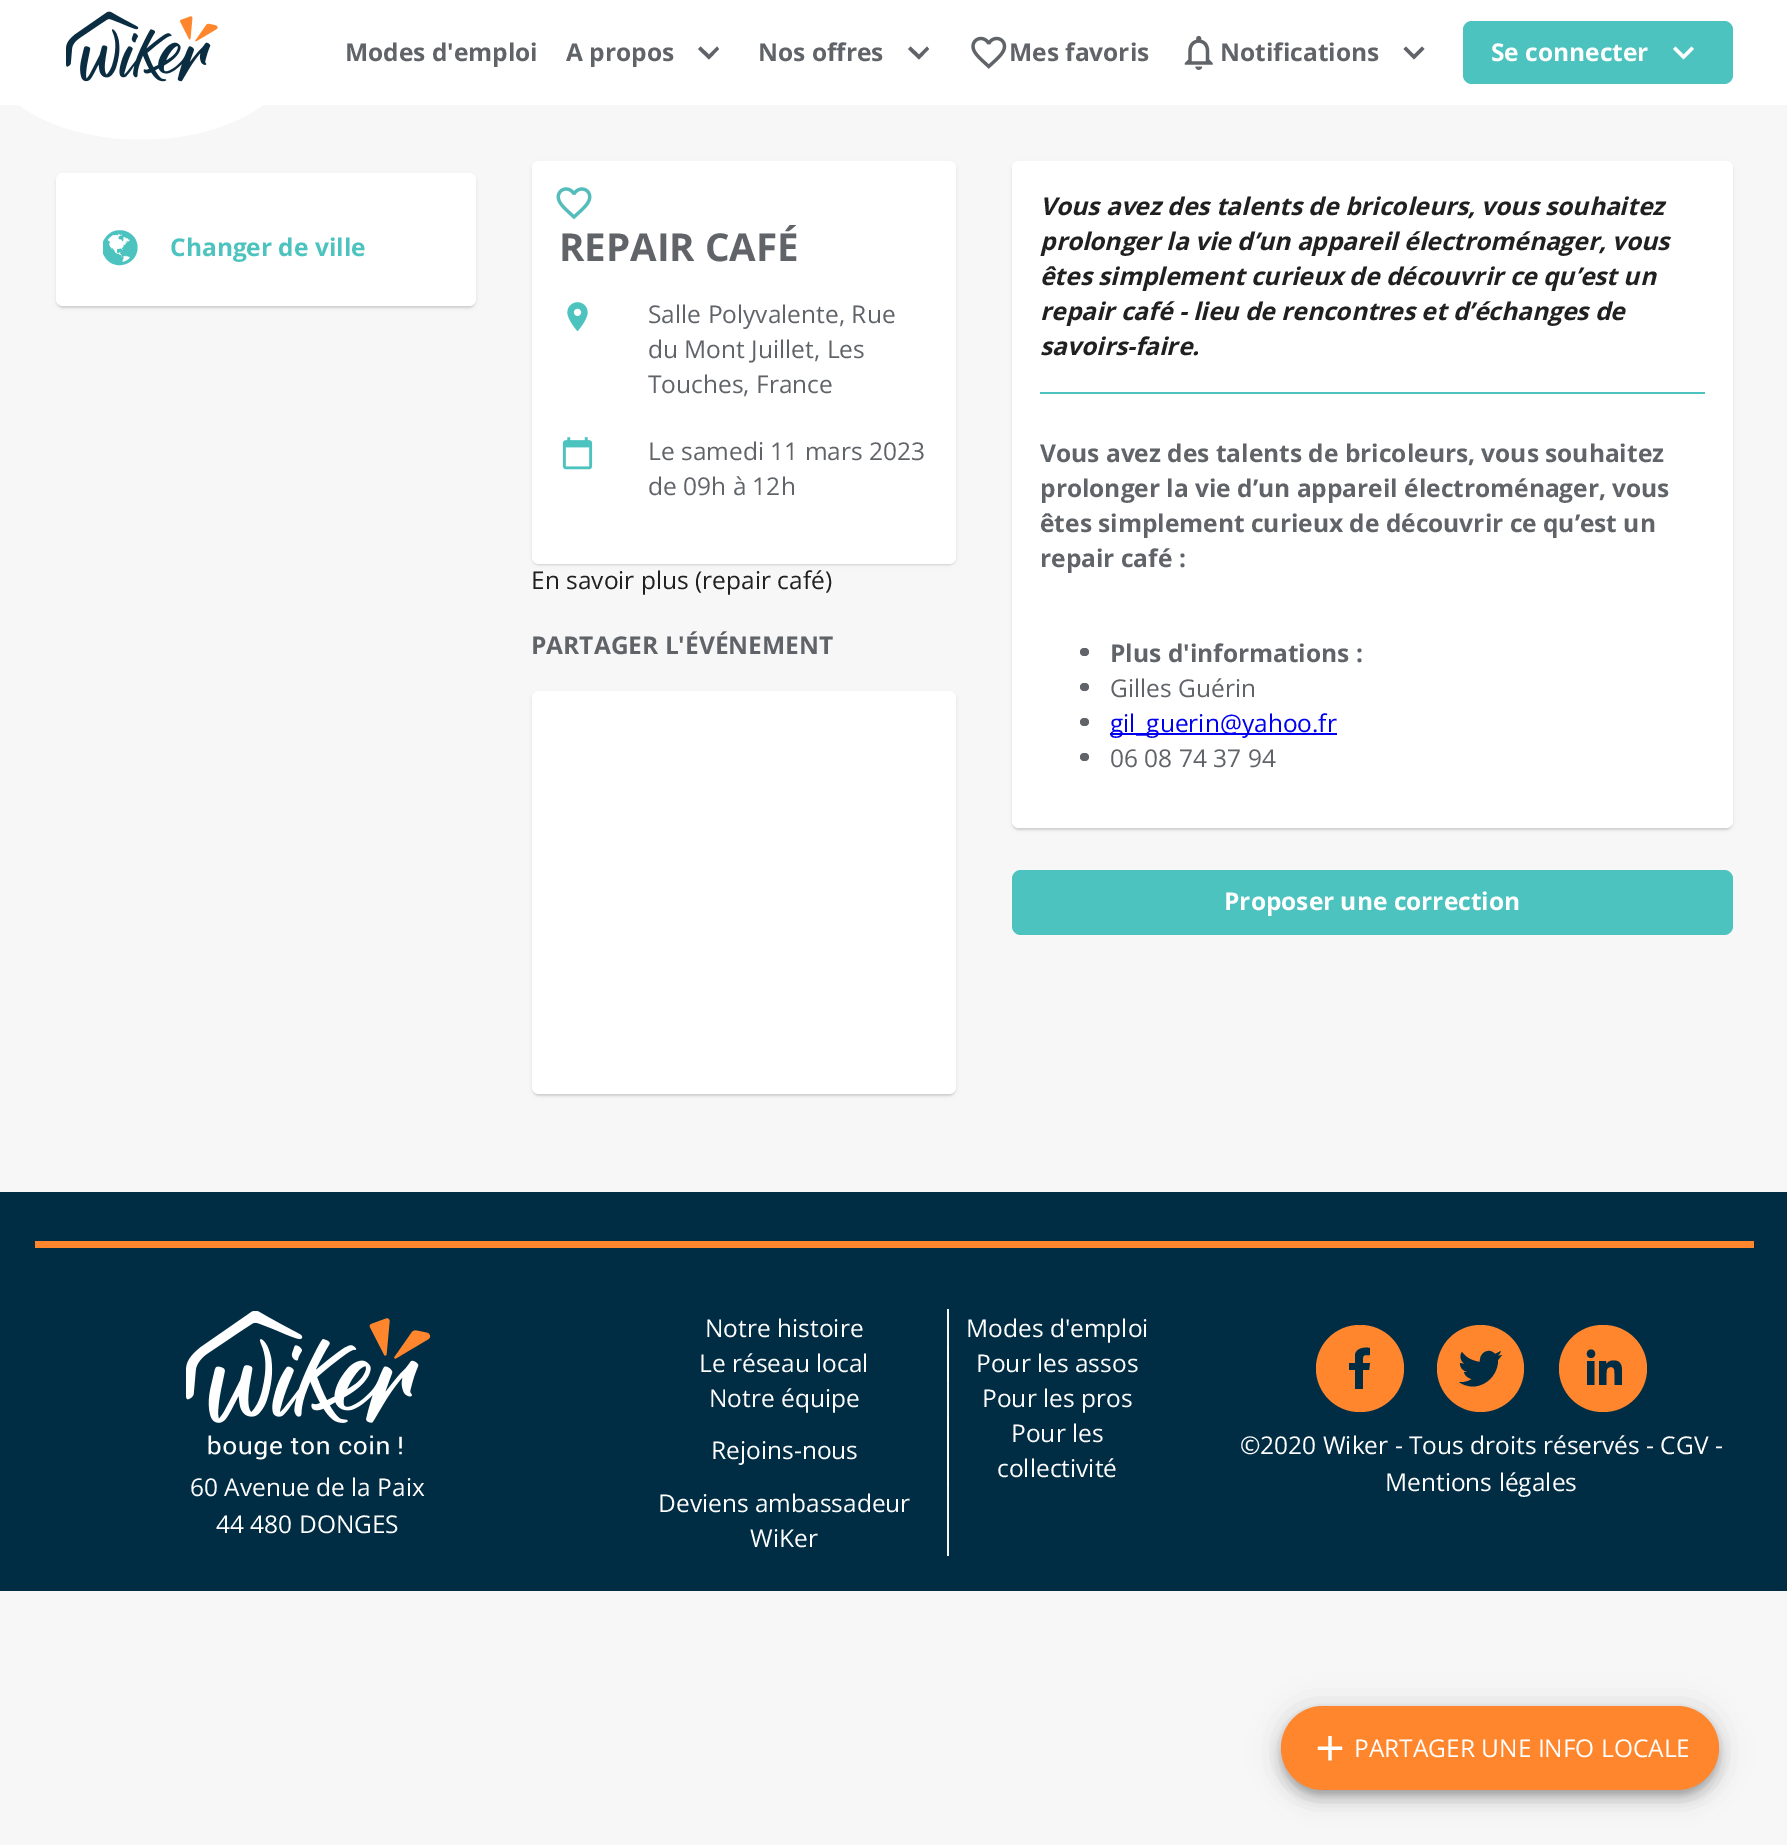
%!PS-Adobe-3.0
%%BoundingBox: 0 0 1787 1845
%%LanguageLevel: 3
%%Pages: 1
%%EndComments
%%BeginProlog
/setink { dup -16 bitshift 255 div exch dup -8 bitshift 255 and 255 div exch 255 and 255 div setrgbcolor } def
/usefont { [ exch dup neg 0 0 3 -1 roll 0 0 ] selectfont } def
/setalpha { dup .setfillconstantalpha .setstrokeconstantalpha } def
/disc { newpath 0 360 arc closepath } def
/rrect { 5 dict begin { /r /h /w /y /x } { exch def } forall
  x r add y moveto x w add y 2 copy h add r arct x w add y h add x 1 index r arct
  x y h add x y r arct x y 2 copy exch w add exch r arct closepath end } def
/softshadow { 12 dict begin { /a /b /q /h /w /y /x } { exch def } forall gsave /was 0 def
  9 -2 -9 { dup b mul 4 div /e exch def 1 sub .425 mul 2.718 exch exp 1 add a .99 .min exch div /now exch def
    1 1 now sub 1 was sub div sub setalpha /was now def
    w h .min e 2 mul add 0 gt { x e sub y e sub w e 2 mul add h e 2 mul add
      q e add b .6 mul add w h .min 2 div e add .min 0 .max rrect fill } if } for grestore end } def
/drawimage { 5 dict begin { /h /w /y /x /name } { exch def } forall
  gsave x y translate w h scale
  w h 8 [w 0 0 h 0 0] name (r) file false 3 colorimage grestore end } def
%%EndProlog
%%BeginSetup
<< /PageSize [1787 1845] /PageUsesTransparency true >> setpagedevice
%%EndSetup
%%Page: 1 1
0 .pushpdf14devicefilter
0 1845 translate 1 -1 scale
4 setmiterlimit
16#F7F7F7 setink
0 0 1787 1845 rectfill
16#FFFFFF setink
0 0 1787 105 rectfill
141 -34.5 moveto 225.5 -34.5 294 4.5 294 52.5 curveto 294 100.5 225.5 139.5 141 139.5 curveto 56.5 139.5 -12 100.5 -12 52.5 curveto -12 4.5 56.5 -34.5 141 -34.5 curveto closepath fill
(img1.raw) 66 11 152 71 drawimage
/OpenSans-Bold 24.5 usefont
16#606368 setink
345 61 moveto (Modes d'emploi) show
566 61 moveto (A propos) show
700.5 46.5 moveto 709 54.5 lineto 717 46.5 lineto 719 49 lineto 709 59.5 lineto 698 49 lineto closepath fill
758 61 moveto (Nos offres) show
910.5 46.5 moveto 919 54.5 lineto 927 46.5 lineto 929 49 lineto 919 59.5 lineto 908 49 lineto closepath fill
(img2.raw) 971 36 36 33 drawimage
1009 61 moveto (Mes favoris) show
(img3.raw) 1184 35 29 35 drawimage
1220 61 moveto (Notifications) show
1406 46.5 moveto 1414 54.5 lineto 1422 46.5 lineto 1424.5 49 lineto 1414 59.5 lineto 1403.5 49 lineto closepath fill
16#4CC3BF setink
1463 21 270 63 9 rrect fill
16#FFFFFF setink
1491 61 moveto (Se connecter) show
1675.5 46.5 moveto 1683.5 54.5 lineto 1691.5 46.5 lineto 1694 49 lineto 1683.5 59.5 lineto 1673 49 lineto closepath fill
16#000000 setink
58 179 416 129 5 1 0.05 softshadow
56 175 420 133 7 1 0.05 softshadow
56 175 420 133 7 2.5 0.05 softshadow
16#FFFFFF setink
56 173 420 133 7 rrect fill
16#4CC3BF setink
137.5 247.5 moveto 137.5 231 116 224 106 237 curveto 105 238.5 103 241 103 243 curveto 103 252.5 lineto 103 254.5 105 257 106 258.5 curveto 116 271.5 137.5 264 137.5 247.5 curveto closepath 122.5 257 moveto 122 256.5 lineto 121.5 256.5 lineto 120.5 255 lineto 119.5 255.5 119 254 118.5 254 curveto 117.5 254 lineto 115 252.5 lineto 114.5 252 115 251 114 250.5 curveto 113.5 250 112.5 248 112 248 curveto 113 251 lineto 112 249.5 lineto 111 247.5 lineto 110 247 lineto 110 246 lineto 109.5 246 109 245 109 244.5 curveto 109.5 243 lineto 109 243 109 241.5 109.5 242.5 curveto 110.5 242 109 241 108.5 241 curveto 108 240.5 lineto 108 240.5 108 240 107.5 240 curveto 108.5 238.5 110 237 111.5 236 curveto 113 234.5 113 234.5 114.5 235.5 curveto 114 235 lineto 115.5 235 lineto 115 234 lineto 113 235 lineto 115 234 lineto 115.5 234 lineto 115.5 234.5 lineto 115.5 235 117 235 117 235 curveto 117.5 235 lineto 118 235.5 lineto 118 235 lineto 118.5 234.5 lineto 117.5 234 lineto 117.5 233 119.5 234 119 234 curveto 119.5 234.5 lineto 120 234 120 235 120.5 235 curveto 121.5 234 lineto 122 234 122 235 122 235 curveto 122 235.5 lineto 121.5 235.5 lineto 120.5 235 120.5 236.5 119 236.5 curveto 118.5 238 lineto 118.5 238 119 239 119 239 curveto 119.5 239 120.5 239 121 239.5 curveto 121.5 238.5 122 241 122.5 241 curveto 123.5 241.5 123 240 123 240 curveto 123.5 239 lineto 123 238.5 lineto 123.5 237.5 lineto 123.5 237 122.5 236.5 124.5 237 curveto 126 237.5 lineto 125.5 238 lineto 126 238 126.5 238.5 126 238.5 curveto 127 238 lineto 127.5 238 127.5 237.5 127.5 238 curveto 128.5 239.5 lineto 129.5 239.5 lineto 129.5 240 129.5 240 130 240 curveto 130 241 129.5 240.5 129 241 curveto 128.5 241.5 lineto 127.5 241.5 lineto 126 241.5 126 242 125.5 242.5 curveto 126.5 241.5 lineto 127.5 241.5 127.5 242 126.5 242 curveto 127 242.5 lineto 127.5 243 127 243 126.5 243 curveto 126 243.5 lineto 125.5 244 125.5 243.5 125.5 244.5 curveto 124.5 245 lineto 124.5 245 124 245.5 124 245 curveto 123.5 245.5 lineto 123.5 246 lineto 124 246.5 lineto 123.5 246.5 lineto 124 247 121 248.5 122.5 249 curveto 122.5 250.5 lineto 122 250.5 122 249 121.5 249 curveto 121.5 249 120.5 248.5 120 248.5 curveto 120 249 119.5 248.5 119.5 248.5 curveto 119.5 249 lineto 118 249 lineto 117 249.5 lineto 117.5 250.5 116.5 252.5 118 253 curveto 119.5 253.5 119 252.5 119.5 252 curveto 120.5 251.5 120.5 252 120.5 252.5 curveto 120 254 lineto 121 253.5 lineto 121.5 255 lineto 121 255.5 122 256.5 123 256.5 curveto closepath 117.5 235 moveto 117.5 235 lineto closepath 130.5 257.5 moveto 129.5 257.5 lineto 129.5 257 128 256 127.5 256 curveto 127 256.5 lineto 126.5 255.5 125.5 255 125 256.5 curveto 125 256 125.5 255 125 255.5 curveto 123.5 256.5 lineto 123 256.5 lineto 123.5 258.5 lineto 123.5 259 121.5 260.5 122.5 260.5 curveto 122.5 262 lineto 125.5 261.5 128 260 130.5 257.5 curveto closepath eofill
170 256 moveto (Changer de ville) show
16#000000 setink
534 166 420 399 5 1 0.05 softshadow
532 163 424 402 7 1 0.05 softshadow
532 163 424 402 7 2.5 0.05 softshadow
16#FFFFFF setink
532 161 424 403 7 rrect fill
(img4.raw) 556 187 36 33 drawimage
/OpenSans-Bold 38.5 usefont
16#606368 setink
559 261 moveto (REPAIR CAFÉ) show
(img5.raw) 567 302 21 30 drawimage
/OpenSans-Regular 24.5 usefont
[
    [(Salle Polyvalente, Rue) 648 323]
    [(du Mont Juillet, Les) 648 358]
    [(Touches, France) 648 393]
] { aload pop moveto show } forall
(img6.raw) 562 437 31 33 drawimage
648 460 moveto (Le samedi 11 mars 2023) show
648 495 moveto (de 09h à 12h) show
16#202020 setink
531 589 moveto (En savoir plus \(repair café\)) show
/OpenSans-Bold 24.5 usefont
16#606368 setink
531 654 moveto (PARTAGER L'ÉVÉNEMENT) show
16#000000 setink
534 697 420 399 5 1 0.05 softshadow
532 693 424 403 7 1 0.05 softshadow
532 693 424 403 7 2.5 0.05 softshadow
16#FFFFFF setink
532 691 424 403 7 rrect fill
16#000000 setink
1013 166 718 664 5 1 0.05 softshadow
1012 163 721 667 7 1 0.05 softshadow
1012 163 721 667 7 2.5 0.05 softshadow
16#FFFFFF setink
1012 161 721 667 7 rrect fill
16#4CC3BF setink
1040 392 665 2 rectfill
/OpenSans-BoldItalic 24.5 usefont
16#202020 setink
[
    [(Vous avez des talents de bricoleurs, vous souhaitez) 1040 215]
    [(prolonger la vie d’un appareil électroménager, vous) 1040 250]
    [(êtes simplement curieux de découvrir ce qu’est un) 1040 285]
    [(repair café - lieu de rencontres et d’échanges de) 1040 320]
    [(savoirs-faire.) 1040 355]
] { aload pop moveto show } forall
/OpenSans-Bold 24.5 usefont
16#606368 setink
[
    [(Vous avez des talents de bricoleurs, vous souhaitez) 1040 462]
    [(prolonger la vie d’un appareil électroménager, vous) 1040 497]
    [(êtes simplement curieux de découvrir ce qu’est un) 1040 532]
    [(repair café :) 1040 567]
] { aload pop moveto show } forall
1080 648 9 8 4 rrect fill
1110 662 moveto (Plus d'informations :) show
1080 683 9 8 4 rrect fill
/OpenSans-Regular 24.5 usefont
1110 697 moveto (Gilles Guérin) show
1080 718 9 8 4 rrect fill
16#0000EE setink
1110 733 227 2 rectfill
1110 732 moveto (gil_guerin@yahoo.fr) show
16#606368 setink
1080 753 9 8 4 rrect fill
1110 767 moveto (06 08 74 37 94) show
16#4CC3BF setink
1012 870 721 65 9 rrect fill
/OpenSans-Bold 24.5 usefont
16#FFFFFF setink
1224 910 moveto (Proposer une correction) show
16#000000 setink
1281 1708 438 84 42 16 0.12 softshadow
1281 1717 438 84 42 9 0.14 softshadow
1283 1713 434 81 40.5 4.5 0.2 softshadow
16#FF862D setink
1281 1706 438 84 42 rrect fill
(img7.raw) 1317 1736 26 25 drawimage
/OpenSans-Regular 24.5 usefont
16#FFFFFF setink
1354 1757 moveto (PARTAGER UNE INFO LOCALE) show
[
    [0 1192 1787 399 16#002D44]
    [35 1241 1719 7 16#FF862D]
    [947 1484 2 72 16#F7F7F7]
    [947 1414 2 72 16#FFFFFF]
    [947 1379 2 37 16#F7F7F7]
    [947 1344 2 37 16#FFFFFF]
    [947 1309 2 37 16#F7F7F7]
] { aload pop setink rectfill } forall
16#FFFFFF setink
[
    [(Notre histoire) 705 1337]
    [(Modes d'emploi) 966 1337]
    [(Le réseau local) 699 1372]
    [(Pour les assos) 976 1372]
    [(Notre équipe) 709 1407]
    [(Pour les pros) 982 1407]
    [(Rejoins-nous) 711 1459]
    [(Pour les) 1011 1442]
    [(collectivité) 997 1477]
    [(Deviens ambassadeur) 658 1512]
    [(WiKer) 750 1547]
] { aload pop moveto show } forall
16#FF862D setink
1316 1325 88 87 43.5 rrect fill
16#002D44 setink
1363 1389 moveto 1363 1370 lineto 1369 1370 lineto 1370 1363 lineto 1363 1363 lineto 1363 1355 1362 1355 1370 1355 curveto 1370 1348 lineto 1364 1347 1356 1348 1355 1355 curveto 1355 1363 lineto 1349 1363 lineto 1349 1370 lineto 1355 1370 lineto 1355 1389 lineto closepath fill
16#FF862D setink
1480.5 1368.5 43.5 disc fill
16#002D44 setink
1502 1355 moveto 1497 1356 lineto 1499 1355 1500 1353 1501 1351 curveto 1495 1354 lineto 1489 1347 1479 1353 1480 1362 curveto 1473 1361 1466 1358 1462 1352 curveto 1459 1356 1461 1362 1465 1364 curveto 1460 1363 lineto 1460 1368 1463 1371 1468 1372 curveto 1464 1372 lineto 1465 1376 1468 1378 1472 1379 curveto 1469 1381 1463 1383 1459 1382 curveto 1476 1394 1498 1380 1498 1360 curveto closepath fill
16#FF862D setink
1559 1325 88 87 43.5 rrect fill
16#002D44 setink
1587 1385 moveto 1594.5 1385 lineto 1594.5 1361 lineto 1587 1361 lineto closepath 1591 1349.5 moveto 1585.5 1349.5 1585.5 1358 1591 1358 curveto 1596.5 1358 1596.5 1349.5 1591 1349.5 curveto closepath 1613.5 1360.5 moveto 1609.5 1360.5 1607 1362.5 1606.5 1364.5 curveto 1606 1361 lineto 1599 1361 lineto 1599 1385 lineto 1606.5 1385 lineto 1606.5 1373 lineto 1606.5 1370 1607 1367 1611 1367 curveto 1614.5 1367 1614.5 1370.5 1614.5 1373.5 curveto 1614.5 1385 lineto 1622 1385 lineto 1622 1372 lineto 1622 1365.5 1621 1360.5 1613.5 1360.5 curveto closepath fill
16#FFFFFF setink
1240 1454 moveto (©2020 Wiker - Tous droits réservés - CGV -) show
1385 1491 moveto (Mentions légales) show
(img8.raw) 186 1311 245 149 drawimage
190 1496 moveto (60 Avenue de la Paix) show
216 1533 moveto (44 480 DONGES) show
.poppdf14devicefilter showpage
%%EOF
